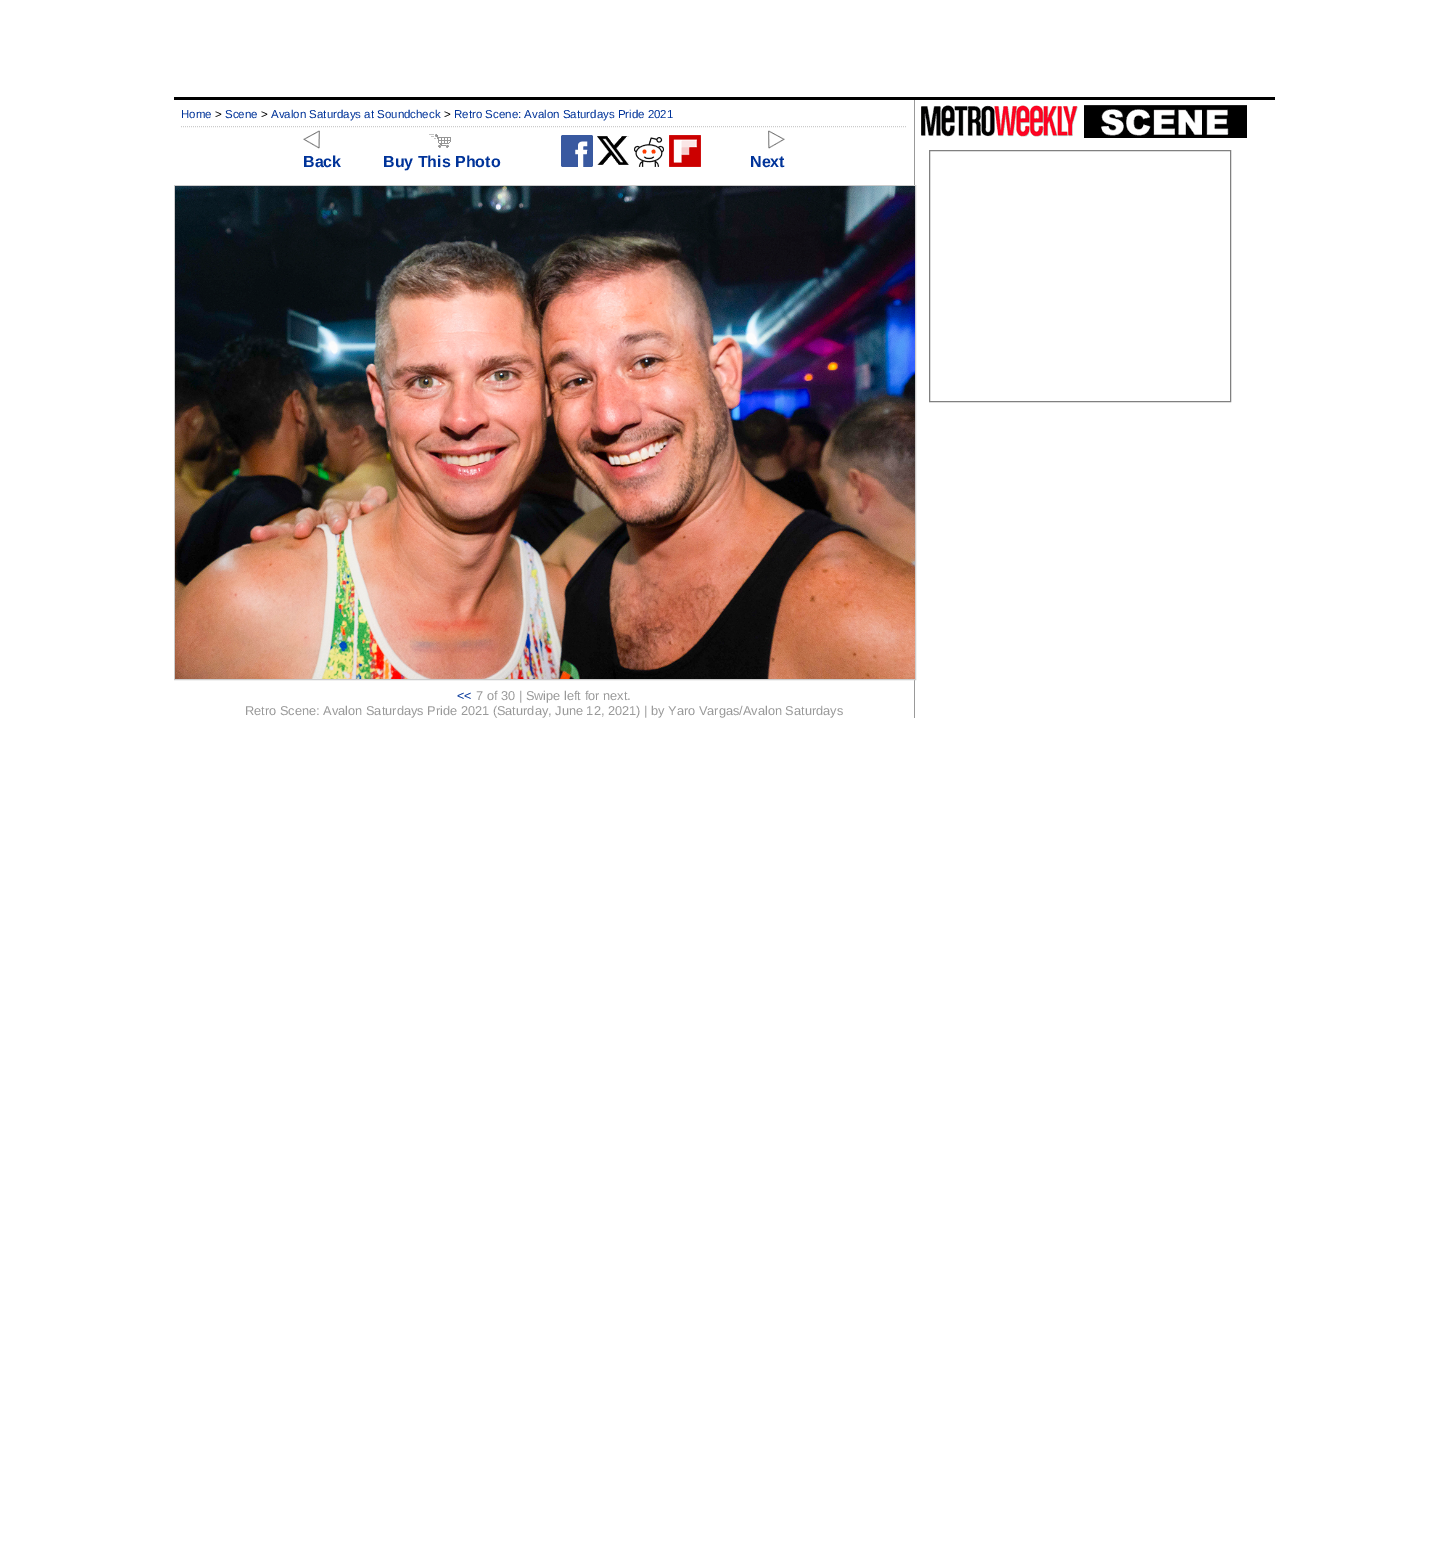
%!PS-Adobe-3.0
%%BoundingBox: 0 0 1449 1542
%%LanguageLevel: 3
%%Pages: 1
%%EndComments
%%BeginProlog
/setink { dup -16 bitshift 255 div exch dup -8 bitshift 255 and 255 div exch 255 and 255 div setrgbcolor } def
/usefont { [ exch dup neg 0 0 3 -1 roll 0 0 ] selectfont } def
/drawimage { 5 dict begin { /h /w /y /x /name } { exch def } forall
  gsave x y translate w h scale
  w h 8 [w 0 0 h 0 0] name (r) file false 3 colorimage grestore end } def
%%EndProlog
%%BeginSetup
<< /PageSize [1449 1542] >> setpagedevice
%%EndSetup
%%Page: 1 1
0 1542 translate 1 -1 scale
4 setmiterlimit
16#FFFFFF setink
0 0 1449 1542 rectfill
16#000000 setink
174 97 1101 3 rectfill
16#999999 setink
914 100 1 618 rectfill
16#CCCCCC setink
[1 1] 0 setdash
181 126.5 moveto 907 126.5 lineto stroke
/LiberationSans-Regular 11.5 usefont
16#003399 setink
181 118 moveto (Home) show
16#000000 setink
215 118 moveto (>) show
16#003399 setink
225 118 moveto (Scene) show
16#000000 setink
261 118 moveto (>) show
16#003399 setink
271 118 moveto (Avalon Saturdays at Soundcheck) show
16#000000 setink
444 118 moveto (>) show
16#003399 setink
454 118 moveto (Retro Scene: Avalon Saturdays Pride 2021) show
(img1.raw) 303 130 17 19 drawimage
/LiberationSans-Bold 16 usefont
303 167 moveto (Back) show
(img2.raw) 429 134 22 14 drawimage
383 167 moveto (Buy This Photo) show
(img3.raw) 561 135 32 32 drawimage
(img4.raw) 597 136 32 29 drawimage
(img5.raw) 634 137 30 30 drawimage
(img6.raw) 669 135 32 32 drawimage
(img7.raw) 768 130 17 19 drawimage
750 167 moveto (Next) show
16#CCCCCC setink
[] 0 setdash
174.5 185.5 741 494 rectstroke
(img8.raw) 175 186 740 493 drawimage
/LiberationSans-Regular 12.8 usefont
16#003399 setink
457 700 moveto (<<) show
16#999999 setink
476 700 moveto (7 of 30 | Swipe left for next.) show
245 715 moveto (Retro Scene: Avalon Saturdays Pride 2021 \(Saturday, June 12, 2021\) | by Yaro Vargas/Avalon Saturdays) show
(img9.raw) 921 105 326 33 drawimage
16#808080 setink
929.5 150.5 301 251 rectstroke
showpage
%%EOF
